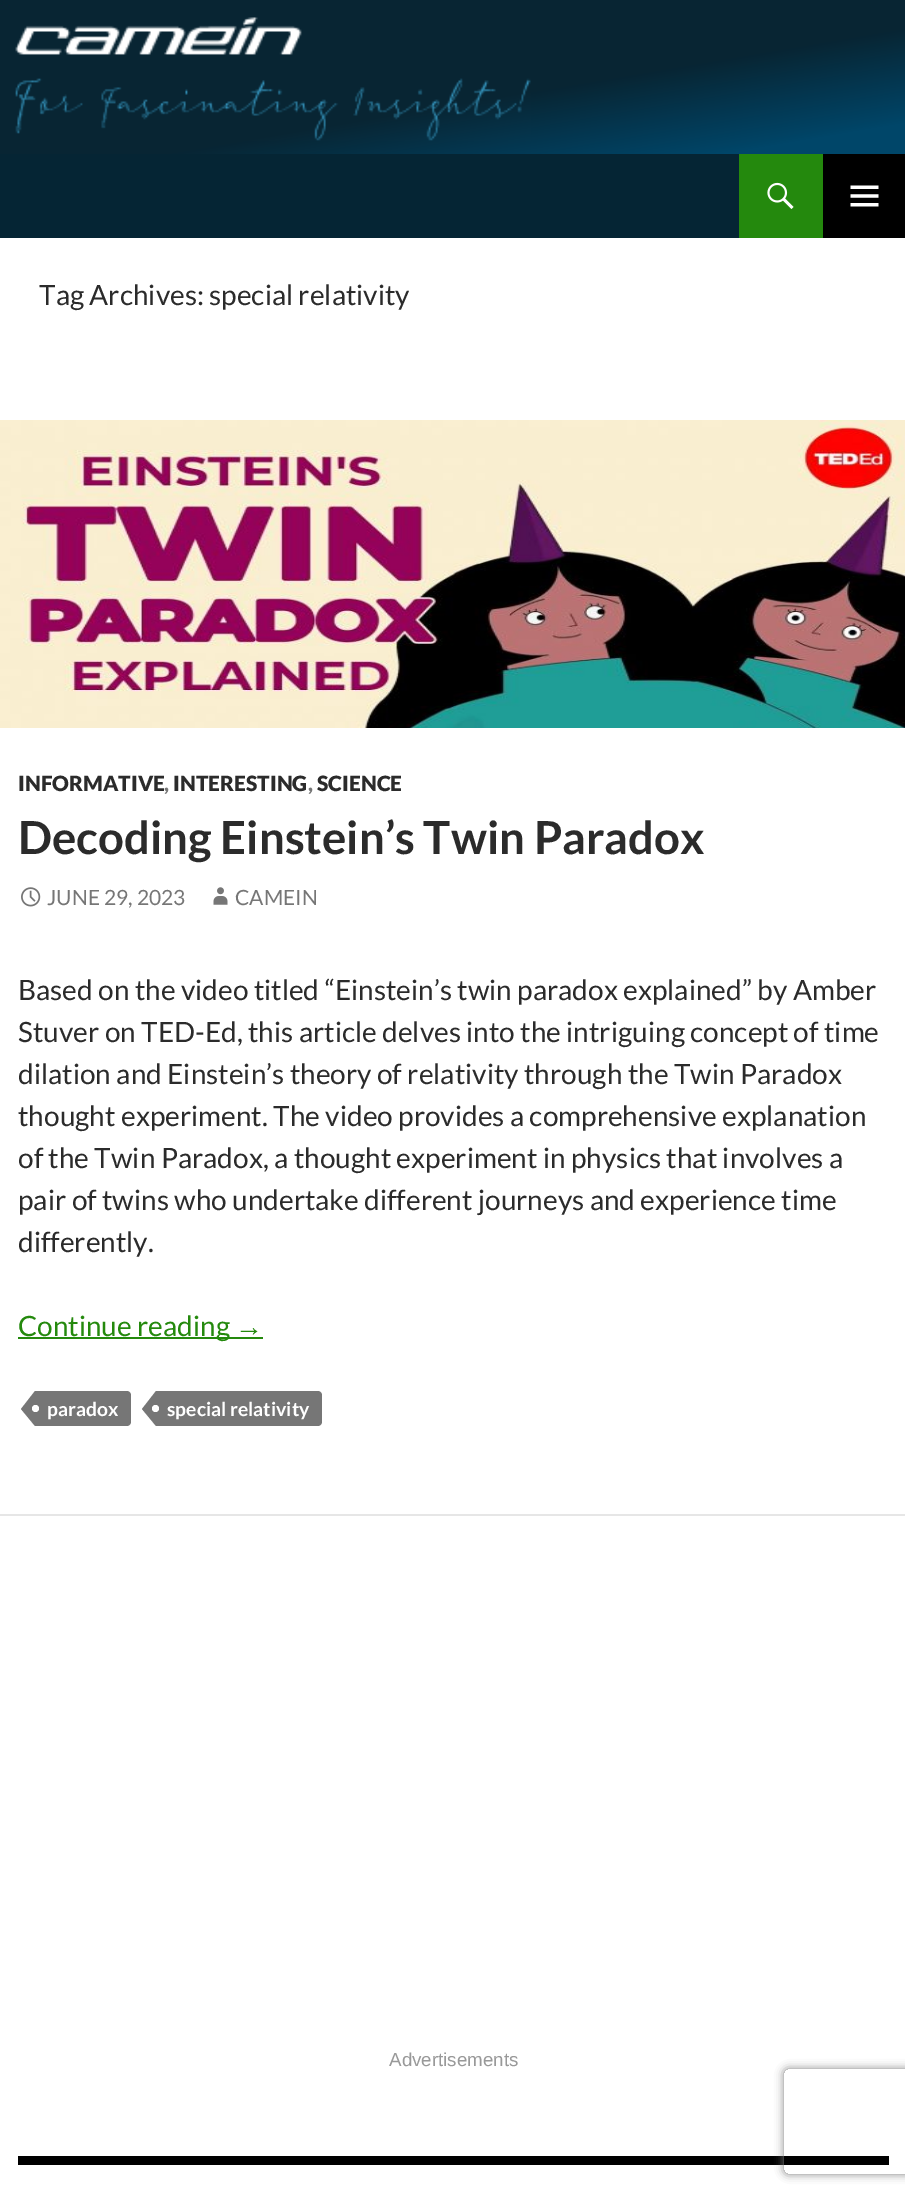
%!PS-Adobe-3.0
%%BoundingBox: 0 0 905 2197
%%LanguageLevel: 3
%%Pages: 1
%%EndComments
%%BeginProlog
/setink { dup -16 bitshift 255 div exch dup -8 bitshift 255 and 255 div exch 255 and 255 div setrgbcolor } def
/usefont { [ exch dup neg 0 0 3 -1 roll 0 0 ] selectfont } def
/setalpha { dup .setfillconstantalpha .setstrokeconstantalpha } def
/disc { newpath 0 360 arc closepath } def
/rrect { 5 dict begin { /r /h /w /y /x } { exch def } forall
  x r add y moveto x w add y 2 copy h add r arct x w add y h add x 1 index r arct
  x y h add x y r arct x y 2 copy exch w add exch r arct closepath end } def
/softshadow { 12 dict begin { /a /b /q /h /w /y /x } { exch def } forall gsave /was 0 def
  9 -2 -9 { dup b mul 4 div /e exch def 1 sub .425 mul 2.718 exch exp 1 add a .99 .min exch div /now exch def
    1 1 now sub 1 was sub div sub setalpha /was now def
    w h .min e 2 mul add 0 gt { x e sub y e sub w e 2 mul add h e 2 mul add
      q e add b .6 mul add w h .min 2 div e add .min 0 .max rrect fill } if } for grestore end } def
/drawimage { 5 dict begin { /h /w /y /x /name } { exch def } forall
  gsave x y translate w h scale
  w h 8 [w 0 0 h 0 0] name (r) file false 3 colorimage grestore end } def
%%EndProlog
%%BeginSetup
<< /PageSize [905 2197] /PageUsesTransparency true >> setpagedevice
%%EndSetup
%%Page: 1 1
0 .pushpdf14devicefilter
0 2197 translate 1 -1 scale
4 setmiterlimit
16#FFFFFF setink
0 0 905 2197 rectfill
gsave 0 0 moveto 905 0 lineto 905 154 lineto 0 154 lineto closepath clip newpath
<< /ShadingType 2 /ColorSpace /DeviceRGB /Coords [428 -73 479 227] /Extend [true true] /Function << /FunctionType 3 /Domain [0 1] /Functions [<< /FunctionType 2 /Domain [0 1] /C0 [0.031 0.145 0.2] /C1 [0.031 0.145 0.2] /N 1 >> << /FunctionType 2 /Domain [0 1] /C0 [0.031 0.145 0.2] /C1 [0 0.275 0.412] /N 1 >> << /FunctionType 2 /Domain [0 1] /C0 [0 0.275 0.412] /C1 [0 0.275 0.412] /N 1 >>] /Bounds [0.59 0.9] /Encode [0 1 0 1 0 1] >> >> shfill grestore
(img1.raw) 15 17 516 124 drawimage
16#052534 setink
0 154 739 84 rectfill
16#24890D setink
739 154 84 84 rectfill
(img2.raw) 767 182 27 27 drawimage
16#000000 setink
823 154 82 84 rectfill
(img3.raw) 850 185 29 22 drawimage
/Lato-Regular 28 usefont
16#2B2B2B setink
39 305 moveto (Tag Archives: special relativity) show
(img4.raw) 0 420 905 308 drawimage
/Lato-Black 21 usefont
18 791 moveto (INFORMATIVE) show
16#767676 setink
164 791 moveto (,) show
16#2B2B2B setink
173 791 moveto (INTERESTING) show
16#767676 setink
308 791 moveto (,) show
16#2B2B2B setink
317 791 moveto (SCIENCE) show
/Lato-Bold 45.5 usefont
18 854 moveto (Decoding Einstein’s Twin Paradox) show
(img5.raw) 21 887 20 20 drawimage
/Lato-Regular 21 usefont
16#767676 setink
47 905 moveto (JUNE 29, 2023) show
(img6.raw) 213 887 15 18 drawimage
235 905 moveto (CAMEIN) show
/Lato-Regular 28 usefont
16#2B2B2B setink
[
    [(Based on the video titled “Einstein’s twin paradox explained” by Amber) 18 1000]
    [(Stuver on TED-Ed, this article delves into the intriguing concept of time) 18 1042]
    [(dilation and Einstein’s theory of relativity through the Twin Paradox) 18 1084]
    [(thought experiment. The video provides a comprehensive explanation) 18 1126]
    [(of the Twin Paradox, a thought experiment in physics that involves a) 18 1168]
    [(pair of twins who undertake different journeys and experience time) 18 1210]
    [(differently.) 18 1252]
] { aload pop moveto show } forall
16#24890D setink
18 1337 245 2 rectfill
18 1336 moveto (Continue reading) show
/LiberationSans-Regular 28 usefont
235 1336 moveto (→) show
16#767676 setink
35 1391 moveto 127 1391 lineto 129 1391 131 1393 131 1395 curveto 131 1422 lineto 131 1424 129 1426 127 1426 curveto 35 1426 lineto closepath fill
35 1391 moveto 35 1426 lineto 21 1409 lineto closepath fill
16#FFFFFF setink
35.5 1408.5 3.5 disc fill
/Lato-Bold 19.25 usefont
47 1416 moveto (paradox) show
16#767676 setink
156 1391 moveto 318 1391 lineto 320 1391 322 1393 322 1395 curveto 322 1422 lineto 322 1424 320 1426 318 1426 curveto 156 1426 lineto closepath fill
156 1391 moveto 156 1426 lineto 142 1409 lineto closepath fill
16#FFFFFF setink
167 1416 moveto (special relativity) show
155.5 1408.5 3.5 disc fill
16#E6E6E6 setink
0 1514 905 2 rectfill
/LiberationSans-Regular 18.75 usefont
16#999999 setink
389 2066 moveto (Advertisements) show
16#000000 setink
18 2156 871 9 rectfill
gsave
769 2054 moveto 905 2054 lineto 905 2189 lineto 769 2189 lineto closepath 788 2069 moveto 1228 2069 lineto 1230 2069 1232 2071 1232 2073 curveto 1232 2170 lineto 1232 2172 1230 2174 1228 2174 curveto 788 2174 lineto 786 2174 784 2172 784 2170 curveto 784 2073 lineto 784 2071 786 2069 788 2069 curveto closepath eoclip newpath
16#808080 setink
784 2069 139 105 4 4.5 1 softshadow
grestore
.poppdf14devicefilter showpage
%%EOF
